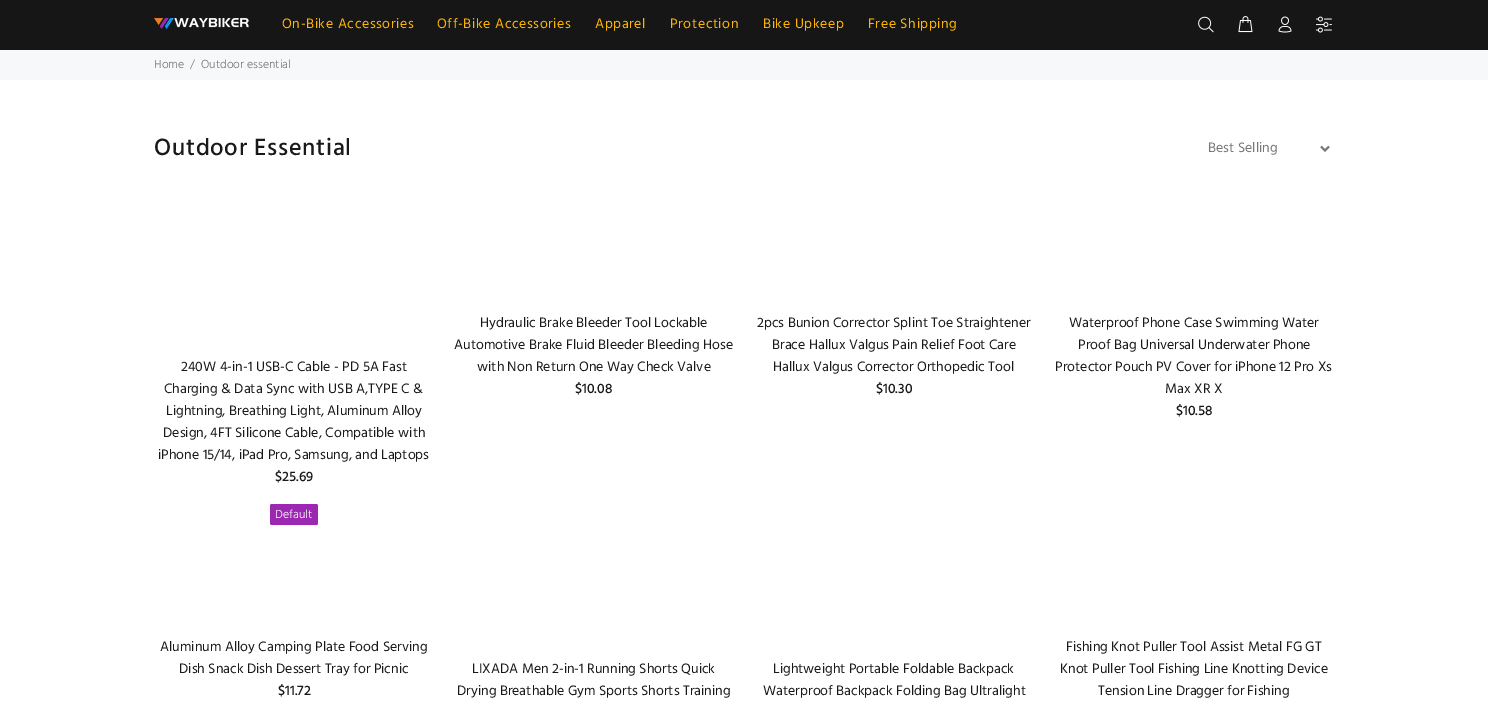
%!PS-Adobe-3.0
%%BoundingBox: 0 0 1488 709
%%LanguageLevel: 3
%%Pages: 1
%%EndComments
%%BeginProlog
/setink { dup -16 bitshift 255 div exch dup -8 bitshift 255 and 255 div exch 255 and 255 div setrgbcolor } def
/usefont { [ exch dup neg 0 0 3 -1 roll 0 0 ] selectfont } def
/rrect { 5 dict begin { /r /h /w /y /x } { exch def } forall
  x r add y moveto x w add y 2 copy h add r arct x w add y h add x 1 index r arct
  x y h add x y r arct x y 2 copy exch w add exch r arct closepath end } def
/drawimage { 5 dict begin { /h /w /y /x /name } { exch def } forall
  gsave x y translate w h scale
  w h 8 [w 0 0 h 0 0] name (r) file false 3 colorimage grestore end } def
%%EndProlog
%%BeginSetup
<< /PageSize [1488 709] >> setpagedevice
%%EndSetup
%%Page: 1 1
0 709 translate 1 -1 scale
4 setmiterlimit
16#FFFFFF setink
0 0 1488 709 rectfill
16#161617 setink
0 0 1488 50 rectfill
(img1.raw) 154 18 95 11 drawimage
/Hind-Regular 14 usefont
16#FFB503 setink
282 28 moveto 0.6 0 (On-Bike Accessories) ashow
437 28 moveto 0.6 0 (Off-Bike Accessories) ashow
595 28 moveto 0.6 0 (Apparel) ashow
670 28 moveto 0.6 0 (Protection) ashow
763 28 moveto 0.6 0 (Bike Upkeep) ashow
868 28 moveto 0.6 0 (Free Shipping) ashow
(img2.raw) 1198 16 16 17 drawimage
(img3.raw) 1238 16 15 17 drawimage
(img4.raw) 1278 16 14 17 drawimage
(img5.raw) 1315 16 17 17 drawimage
16#F7F8FA setink
0 50 1488 30 rectfill
/Hind-Light 12 usefont
16#777777 setink
[
    [(Home) 154 68]
    [(/) 190 68]
    [(Outdoor essential) 201 68]
] { aload pop moveto show } forall
/Hind-Medium 24 usefont
16#191919 setink
154 155 moveto 0.75 0 (Outdoor Essential) ashow
16#777777 setink
2 setlinewidth
1321 146.5 moveto 1325 150.5 lineto 1329 146.5 lineto stroke
/Hind-Regular 14 usefont
1208 152 moveto (Best Selling) show
16#191919 setink
[
    [(240W 4-in-1 USB-C Cable - PD 5A Fast) 181 371]
    [(Charging & Data Sync with USB A,TYPE C &) 164 393]
    [(Lightning, Breathing Light, Aluminum Alloy) 166 415]
    [(Design, 4FT Silicone Cable, Compatible with) 163 437]
    [(iPhone 15/14, iPad Pro, Samsung, and Laptops) 158 459]
] { aload pop moveto show } forall
/Hind-Medium 14 usefont
275 481 moveto ($25.69) show
16#9C28B1 setink
270 504 48 21 2 rrect fill
/Hind-Light 12 usefont
16#FFFFFF setink
275 518 moveto (Default) show
/Hind-Regular 14 usefont
16#191919 setink
[
    [(Hydraulic Brake Bleeder Tool Lockable) 480 327]
    [(Automotive Brake Fluid Bleeder Bleeding Hose) 454 349]
    [(with Non Return One Way Check Valve) 477 371]
] { aload pop moveto show } forall
/Hind-Medium 14 usefont
575 393 moveto ($10.08) show
/Hind-Regular 14 usefont
[
    [(2pcs Bunion Corrector Splint Toe Straightener) 757 327]
    [(Brace Hallux Valgus Pain Relief Foot Care) 772 349]
    [(Hallux Valgus Corrector Orthopedic Tool) 773 371]
] { aload pop moveto show } forall
/Hind-Medium 14 usefont
876 393 moveto ($10.30) show
/Hind-Regular 14 usefont
[
    [(Waterproof Phone Case Swimming Water) 1069 327]
    [(Proof Bag Universal Underwater Phone) 1078 349]
    [(Protector Pouch PV Cover for iPhone 12 Pro Xs) 1055 371]
    [(Max XR X) 1165 393]
] { aload pop moveto show } forall
/Hind-Medium 14 usefont
1176 415 moveto ($10.58) show
/Hind-Regular 14 usefont
160 651 moveto (Aluminum Alloy Camping Plate Food Serving) show
179 673 moveto (Dish Snack Dish Dessert Tray for Picnic) show
/Hind-Medium 14 usefont
278 695 moveto ($11.72) show
/Hind-Regular 14 usefont
[
    [(LIXADA Men 2-in-1 Running Shorts Quick) 472 673]
    [(Drying Breathable Gym Sports Shorts Training) 457 695]
    [(Lightweight Portable Foldable Backpack) 773 673]
    [(Waterproof Backpack Folding Bag Ultralight) 763 695]
    [(Fishing Knot Puller Tool Assist Metal FG GT) 1066 651]
    [(Knot Puller Tool Fishing Line Knotting Device) 1060 673]
    [(Tension Line Dragger for Fishing) 1098 695]
] { aload pop moveto show } forall
showpage
%%EOF
